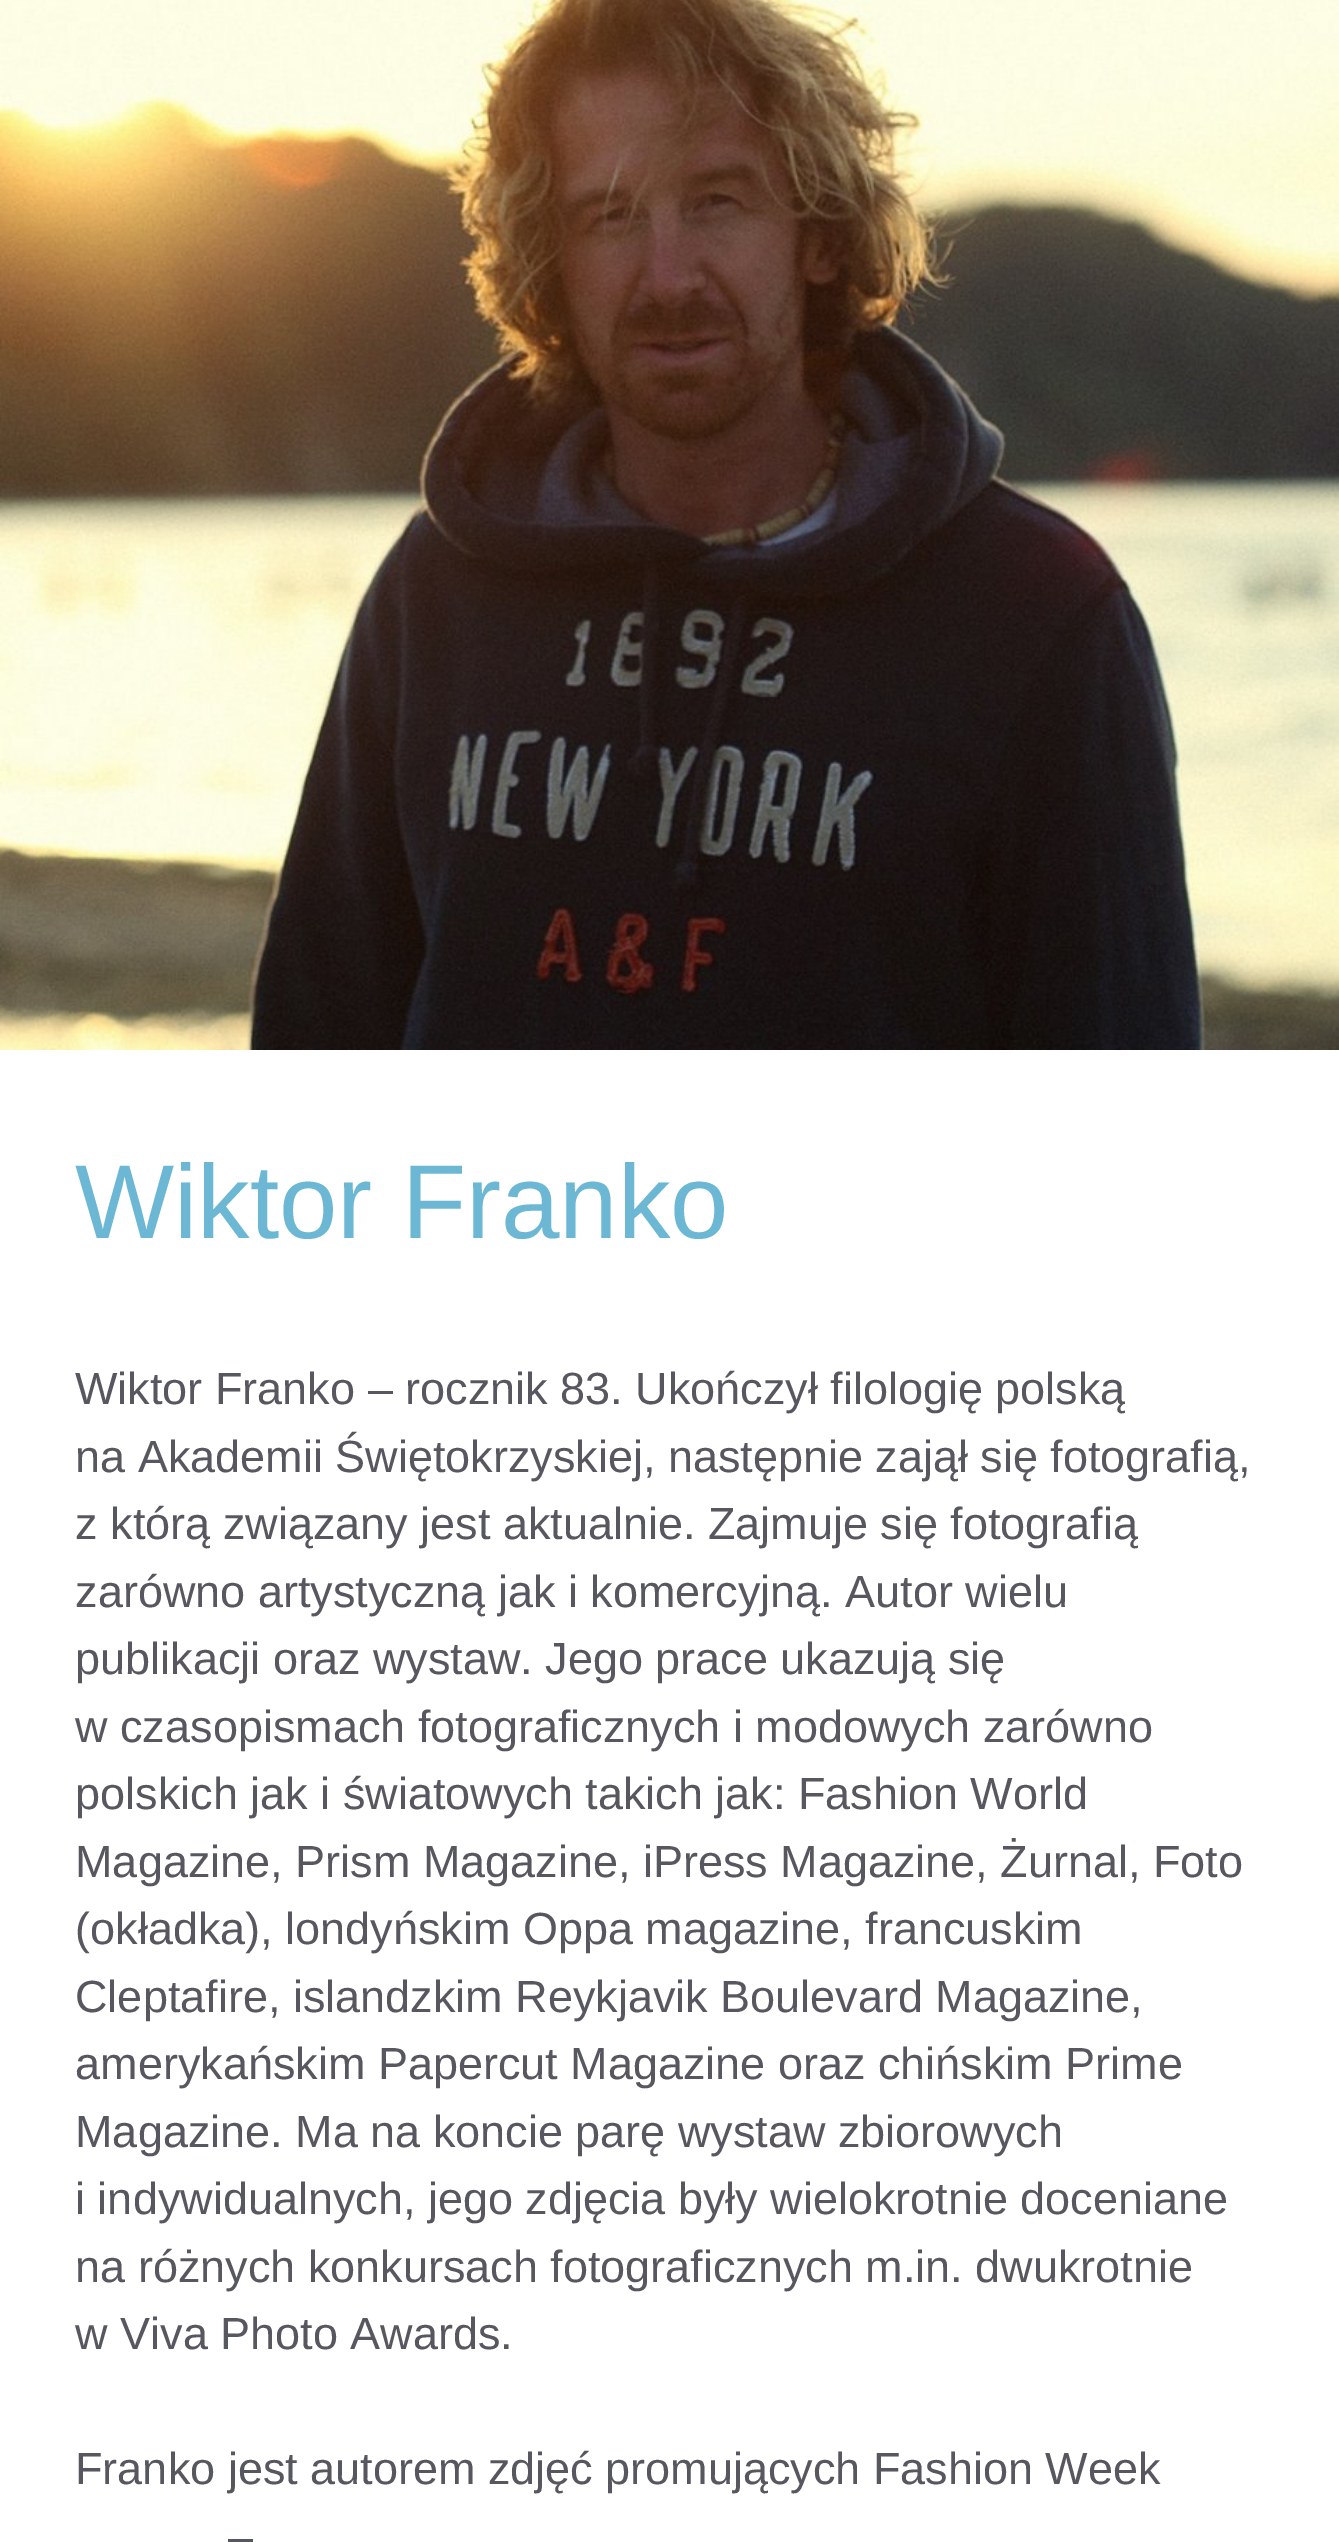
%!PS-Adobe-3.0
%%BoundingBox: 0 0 1339 2542
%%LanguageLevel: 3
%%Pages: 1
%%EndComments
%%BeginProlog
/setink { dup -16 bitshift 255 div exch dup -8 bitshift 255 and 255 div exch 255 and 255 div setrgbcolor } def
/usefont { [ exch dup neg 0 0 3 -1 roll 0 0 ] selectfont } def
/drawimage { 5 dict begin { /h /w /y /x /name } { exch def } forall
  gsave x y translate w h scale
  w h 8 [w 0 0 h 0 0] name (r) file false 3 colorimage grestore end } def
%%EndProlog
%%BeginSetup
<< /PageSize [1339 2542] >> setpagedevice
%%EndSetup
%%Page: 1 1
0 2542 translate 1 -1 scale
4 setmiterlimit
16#FFFFFF setink
0 0 1339 2542 rectfill
(img1.raw) 0 0 1339 1050 drawimage
/LiberationSans-Regular 105 usefont
16#6CB8D4 setink
75 1238 moveto (Wiktor Franko) show
/LiberationSans-Regular 45 usefont
16#575760 setink
[
    [(Wiktor Franko – rocznik 83. Ukończył filologię polską) 75 1404]
    [(na Akademii Świętokrzyskiej, następnie zajął się fotografią,) 75 1472]
    [(z którą związany jest aktualnie. Zajmuje się fotografią) 75 1539]
    [(zarówno artystyczną jak i komercyjną. Autor wielu) 75 1607]
    [(publikacji oraz wystaw. Jego prace ukazują się) 75 1674]
    [(w czasopismach fotograficznych i modowych zarówno) 75 1742]
    [(polskich jak i światowych takich jak: Fashion World) 75 1809]
    [(Magazine, Prism Magazine, iPress Magazine, Żurnal, Foto) 75 1877]
    [(\(okładka\), londyńskim Oppa magazine, francuskim) 75 1944]
    [(Cleptafire, islandzkim Reykjavik Boulevard Magazine,) 75 2012]
    [(amerykańskim Papercut Magazine oraz chińskim Prime) 75 2079]
    [(Magazine. Ma na koncie parę wystaw zbiorowych) 75 2147]
    [(i indywidualnych, jego zdjęcia były wielokrotnie doceniane) 75 2214]
    [(na różnych konkursach fotograficznych m.in. dwukrotnie) 75 2282]
    [(w Viva Photo Awards.) 75 2349]
    [(Franko jest autorem zdjęć promujących Fashion Week) 75 2484]
    [(–) 228 2552]
] { aload pop moveto show } forall
showpage
%%EOF
